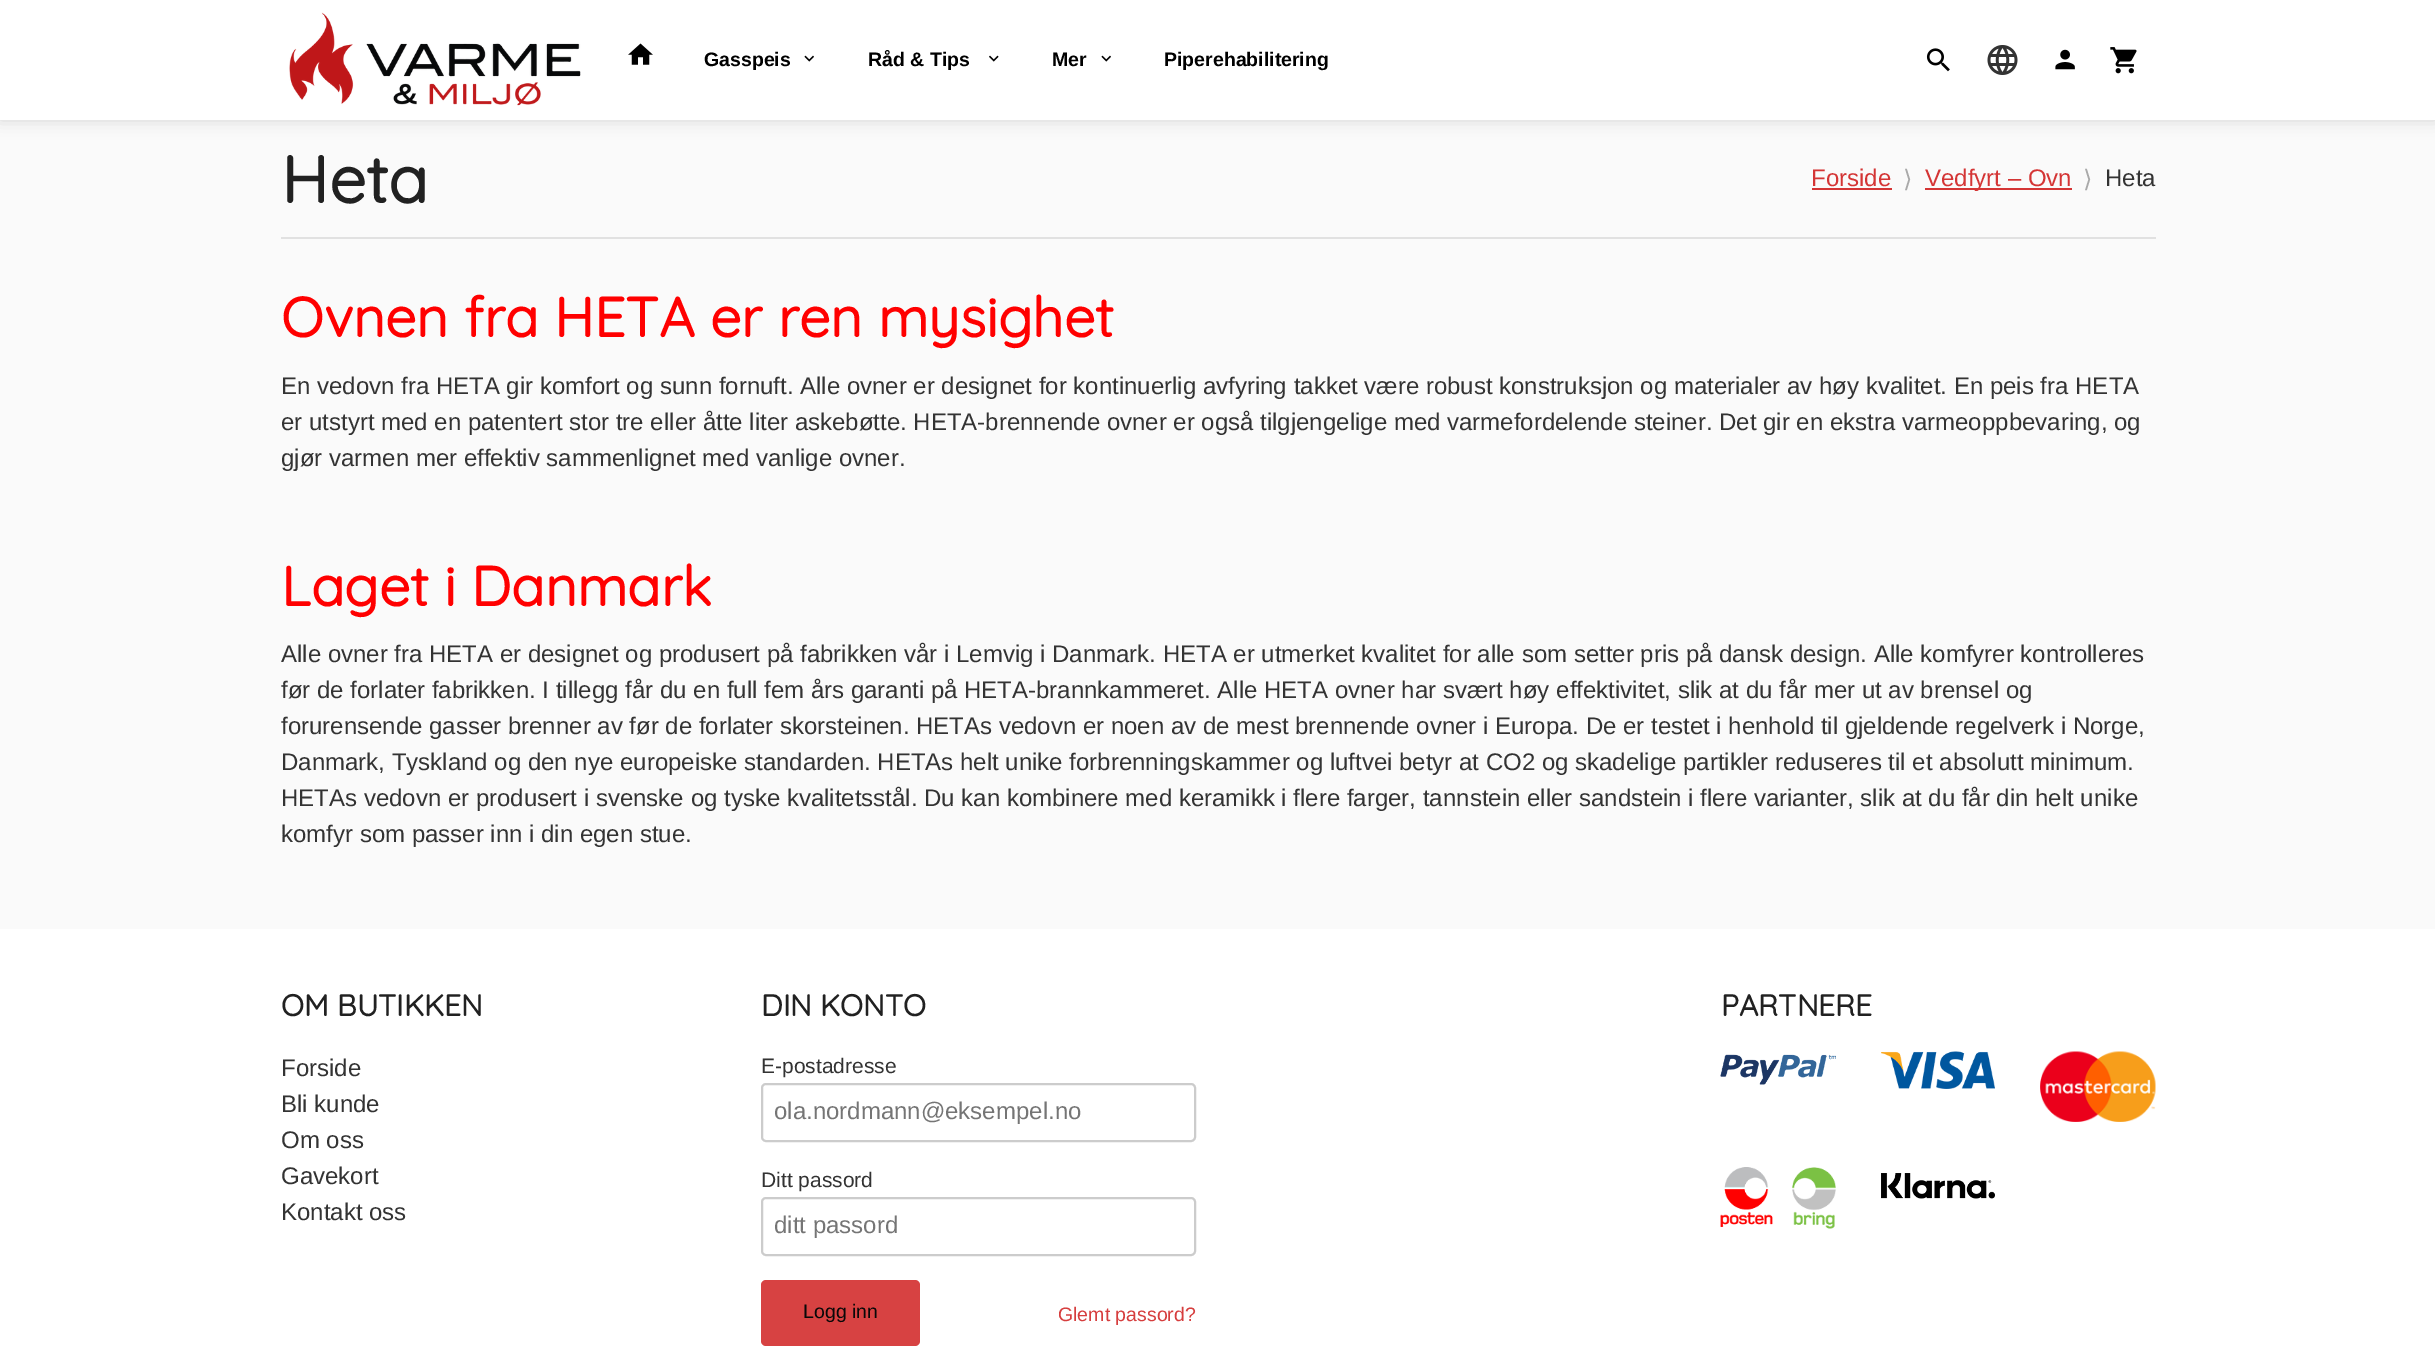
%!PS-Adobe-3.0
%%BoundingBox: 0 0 2435 1353
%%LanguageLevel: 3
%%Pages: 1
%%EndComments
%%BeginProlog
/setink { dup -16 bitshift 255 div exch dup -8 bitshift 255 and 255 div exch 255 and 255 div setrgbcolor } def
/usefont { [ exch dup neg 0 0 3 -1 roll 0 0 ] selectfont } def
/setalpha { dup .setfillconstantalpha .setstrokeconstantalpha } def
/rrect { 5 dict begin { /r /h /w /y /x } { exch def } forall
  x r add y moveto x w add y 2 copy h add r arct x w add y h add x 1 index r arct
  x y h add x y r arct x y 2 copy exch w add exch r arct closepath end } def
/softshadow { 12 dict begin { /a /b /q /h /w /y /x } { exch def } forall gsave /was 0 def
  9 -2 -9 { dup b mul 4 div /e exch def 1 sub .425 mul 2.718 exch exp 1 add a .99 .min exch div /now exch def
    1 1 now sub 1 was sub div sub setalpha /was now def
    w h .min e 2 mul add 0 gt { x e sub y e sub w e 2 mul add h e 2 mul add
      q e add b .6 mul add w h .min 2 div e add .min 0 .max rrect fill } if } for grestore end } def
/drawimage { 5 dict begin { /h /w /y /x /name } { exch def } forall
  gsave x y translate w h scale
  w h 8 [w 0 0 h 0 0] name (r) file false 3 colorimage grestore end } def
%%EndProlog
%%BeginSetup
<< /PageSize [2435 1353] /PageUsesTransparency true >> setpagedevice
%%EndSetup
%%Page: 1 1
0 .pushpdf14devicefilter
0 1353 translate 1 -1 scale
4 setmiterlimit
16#FAFAFA setink
0 0 2435 1353 rectfill
16#000000 setink
0 0 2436 120 0 7.5 0.15 softshadow
16#FFFFFF setink
0 0 2435 120 rectfill
(img1.raw) 289 12 292 94 drawimage
(img2.raw) 628 43 25 22 drawimage
/LiberationSans-Bold 19.5 usefont
16#000000 setink
704 66 moveto (Gasspeis) show
(img3.raw) 804 55 10 7 drawimage
868 66 moveto (Råd & Tips) show
(img4.raw) 989 55 10 7 drawimage
1052 66 moveto (Mer) show
(img3.raw) 1101 55 10 7 drawimage
1164 66 moveto (Piperehabilitering) show
(img5.raw) 1926 48 24 24 drawimage
(img6.raw) 1987 45 31 30 drawimage
(img7.raw) 2055 49 20 21 drawimage
(img8.raw) 2110 47 27 27 drawimage
16#E1E1E1 setink
281 237 1875 2 rectfill
/Quicksand-Bold 66 usefont
16#212121 setink
281 203 moveto (Heta) show
/LiberationSans-Regular 24 usefont
16#D43535 setink
1811 186 moveto (Forside) show
1812 188 80 2 rectfill
/DejaVuSans-Regular 24 usefont
16#AAAAAA setink
1903 187 moveto (⟩) show
16#D43535 setink
1925 188 147 2 rectfill
/LiberationSans-Regular 24 usefont
1925 186 moveto (Vedfyrt – Ovn) show
/DejaVuSans-Regular 24 usefont
16#AAAAAA setink
2083 187 moveto (⟩) show
/LiberationSans-Regular 24 usefont
16#333333 setink
2105 186 moveto (Heta) show
/Quicksand-Bold 55.5 usefont
16#FF0000 setink
281 337 moveto (Ovnen fra HETA er ren mysighet) show
/LiberationSans-Regular 24 usefont
16#333333 setink
[
    [(En vedovn fra HETA gir komfort og sunn fornuft. Alle ovner er designet for kontinuerlig avfyring takket være robust konstruksjon og materialer av høy kvalitet. En peis fra HETA) 281 394]
    [(er utstyrt med en patentert stor tre eller åtte liter askebøtte. HETA-brennende ovner er også tilgjengelige med varmefordelende steiner. Det gir en ekstra varmeoppbevaring, og) 281 430]
    [(gjør varmen mer effektiv sammenlignet med vanlige ovner.) 281 466]
] { aload pop moveto show } forall
/Quicksand-Bold 55.5 usefont
16#FF0000 setink
281 606 moveto (Laget i Danmark) show
/LiberationSans-Regular 24 usefont
16#333333 setink
[
    [(Alle ovner fra HETA er designet og produsert på fabrikken vår i Lemvig i Danmark. HETA er utmerket kvalitet for alle som setter pris på dansk design. Alle komfyrer kontrolleres) 281 662]
    [(før de forlater fabrikken. I tillegg får du en full fem års garanti på HETA-brannkammeret. Alle HETA ovner har svært høy effektivitet, slik at du får mer ut av brensel og) 281 698]
    [(forurensende gasser brenner av før de forlater skorsteinen. HETAs vedovn er noen av de mest brennende ovner i Europa. De er testet i henhold til gjeldende regelverk i Norge,) 281 734]
    [(Danmark, Tyskland og den nye europeiske standarden. HETAs helt unike forbrenningskammer og luftvei betyr at CO2 og skadelige partikler reduseres til et absolutt minimum.) 281 770]
    [(HETAs vedovn er produsert i svenske og tyske kvalitetsstål. Du kan kombinere med keramikk i flere farger, tannstein eller sandstein i flere varianter, slik at du får din helt unike) 281 806]
    [(komfyr som passer inn i din egen stue.) 281 842]
] { aload pop moveto show } forall
16#FFFFFF setink
0 929 2435 424 rectfill
/Quicksand-Bold 30 usefont
16#212121 setink
281 1016 moveto (OM BUTIKKEN) show
/LiberationSans-Regular 24 usefont
16#333333 setink
[
    [(Forside) 281 1076]
    [(Bli kunde) 281 1112]
    [(Om oss) 281 1148]
    [(Gavekort) 281 1184]
    [(Kontakt oss) 281 1220]
] { aload pop moveto show } forall
/Quicksand-Bold 30 usefont
16#212121 setink
761 1016 moveto (DIN KONTO) show
/LiberationSans-Regular 21 usefont
16#333333 setink
761 1073 moveto (E-postadresse) show
16#CCCCCC setink
2 setlinewidth
762 1084 433 57 4 rrect stroke
/LiberationSans-Regular 24 usefont
16#757575 setink
774 1119 moveto (ola.nordmann@eksempel.no) show
/LiberationSans-Regular 21 usefont
16#333333 setink
761 1187 moveto (Ditt passord) show
16#CCCCCC setink
762 1198 433 57 4 rrect stroke
/LiberationSans-Regular 24 usefont
16#757575 setink
774 1233 moveto (ditt passord) show
16#D74242 setink
761 1280 159 66 5 rrect fill
/LiberationSans-Regular 19.5 usefont
16#080808 setink
803 1318 moveto (Logg inn) show
16#D63E3E setink
1058 1321 moveto (Glemt passord?) show
/Quicksand-Bold 30 usefont
16#212121 setink
1721 1016 moveto (PARTNERE) show
(img9.raw) 1720 1054 116 31 drawimage
(img10.raw) 1881 1051 114 38 drawimage
(img11.raw) 2040 1051 116 71 drawimage
(img12.raw) 1720 1167 116 62 drawimage
(img13.raw) 1881 1173 114 26 drawimage
.poppdf14devicefilter showpage
%%EOF
